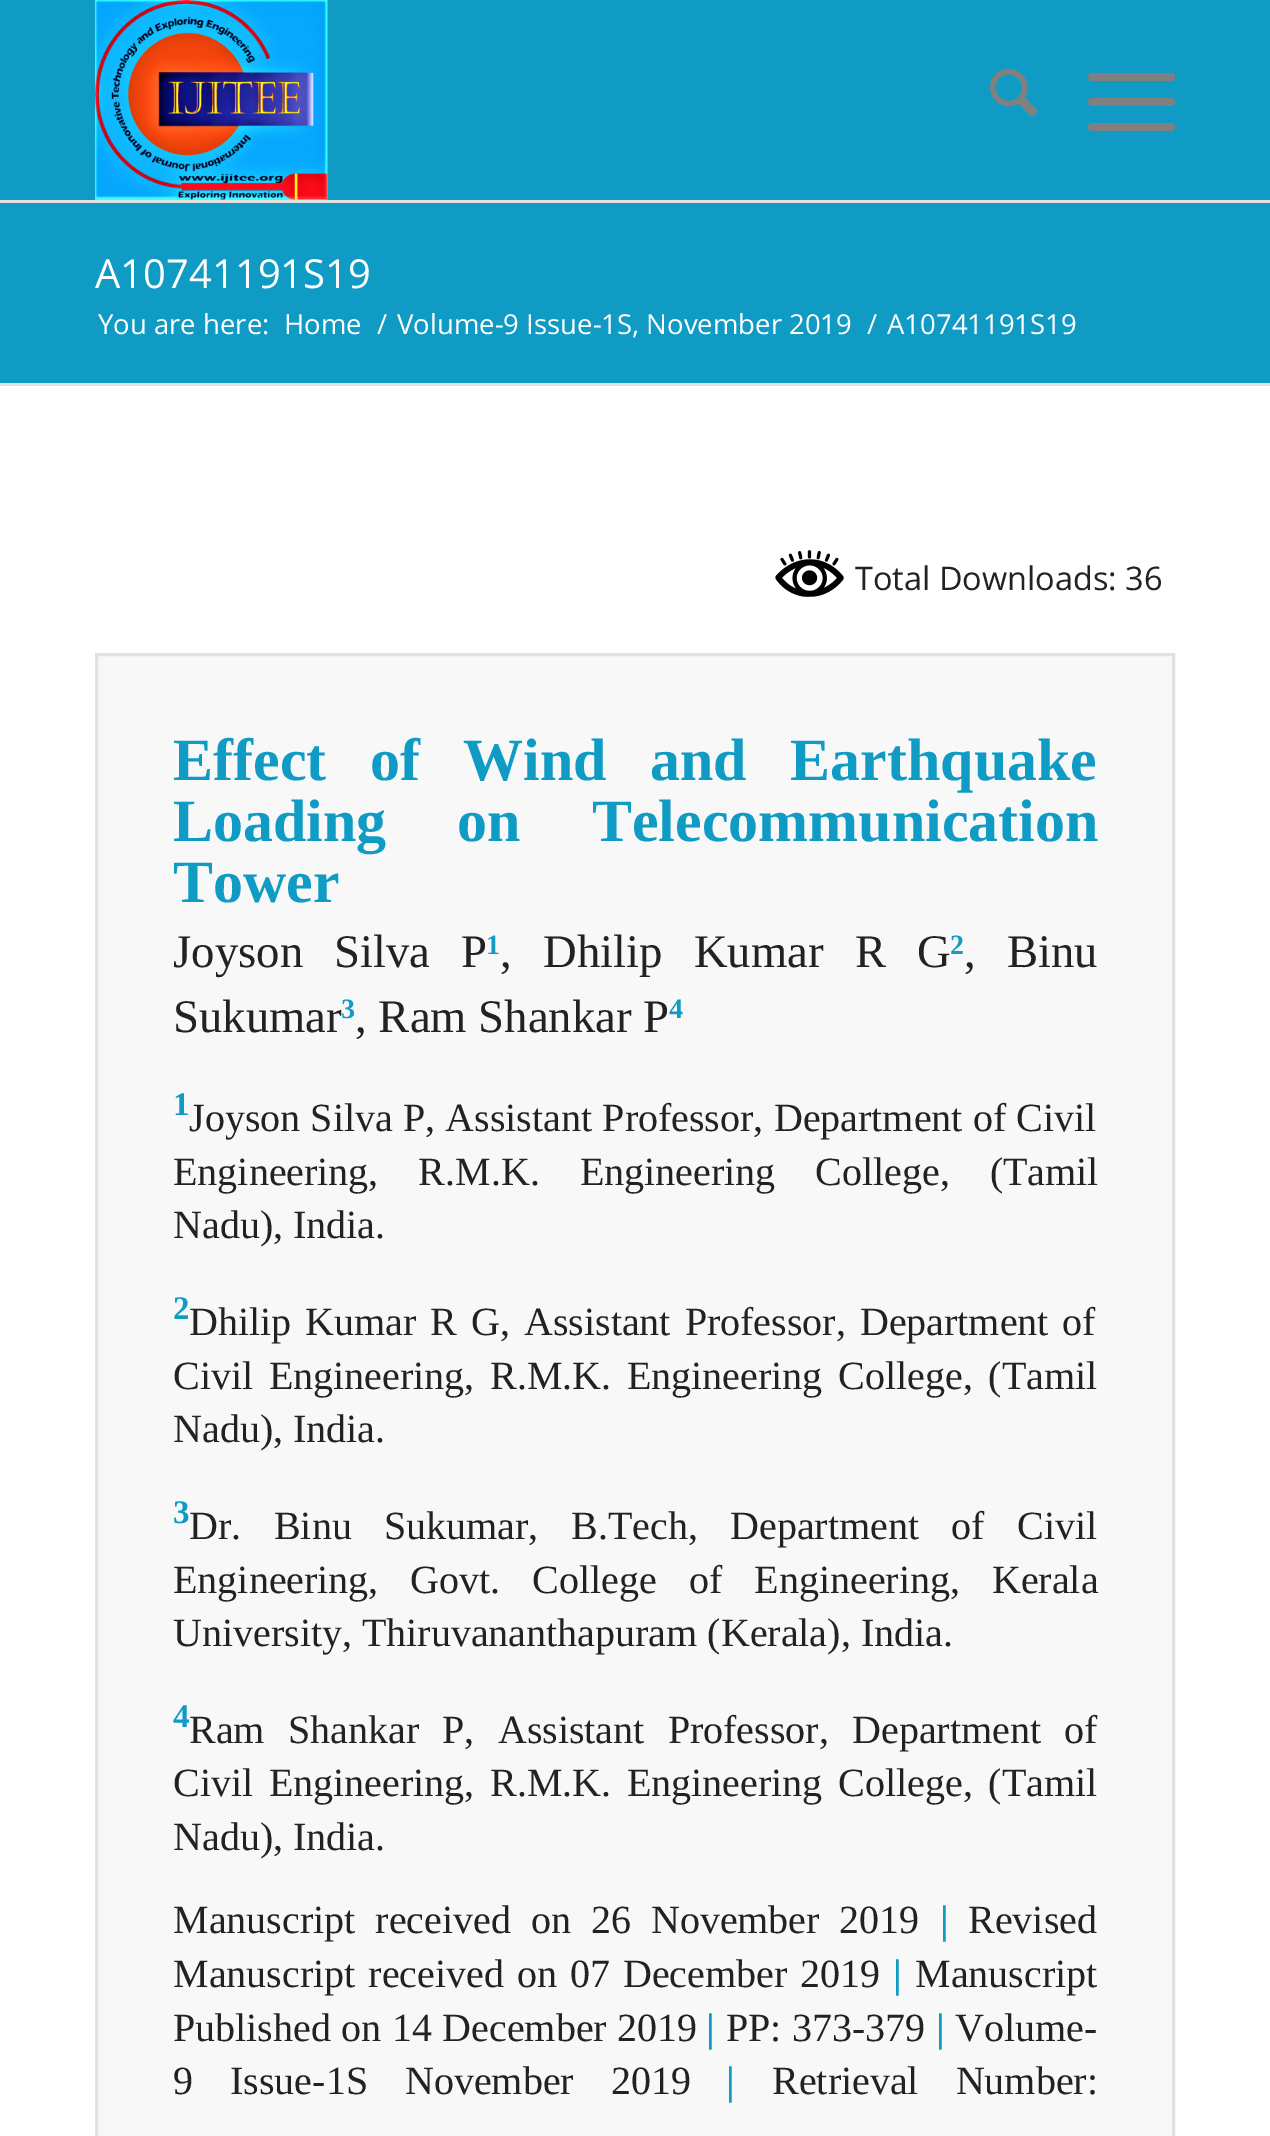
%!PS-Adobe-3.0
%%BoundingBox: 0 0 1270 2136
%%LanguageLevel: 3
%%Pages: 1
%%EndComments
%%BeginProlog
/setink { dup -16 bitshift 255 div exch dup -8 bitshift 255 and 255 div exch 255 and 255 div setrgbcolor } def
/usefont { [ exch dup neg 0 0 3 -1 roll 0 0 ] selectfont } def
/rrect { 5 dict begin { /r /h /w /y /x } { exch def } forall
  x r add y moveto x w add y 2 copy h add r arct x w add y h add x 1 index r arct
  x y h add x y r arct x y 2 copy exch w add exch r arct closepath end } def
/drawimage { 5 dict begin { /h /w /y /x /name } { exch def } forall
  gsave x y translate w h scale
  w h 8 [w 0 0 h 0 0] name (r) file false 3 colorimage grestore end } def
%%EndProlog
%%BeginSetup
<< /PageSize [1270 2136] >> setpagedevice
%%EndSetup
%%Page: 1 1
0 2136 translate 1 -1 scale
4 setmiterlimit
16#109BC5 setink
0 0 1270 2136 rectfill
16#E1E1E1 setink
0 200 1270 3 rectfill
(img1.raw) 95 0 233 200 drawimage
(img2.raw) 990 68 48 49 drawimage
16#808080 setink
1088 98 87 8 4 rrect fill
1088 73 87 8 4 rrect fill
1088 123 87 8 4 rrect fill
/OpenSans-Regular 40 usefont
16#FFFFFF setink
95 288 moveto (A10741191S19) show
/OpenSans-Regular 27.5 usefont
[
    [(You are here:) 98 334]
    [(Home) 284 334]
    [(/) 377 334]
    [(Volume-9 Issue-1S, November 2019) 397 334]
    [(/) 867 334]
    [(A10741191S19) 887 334]
] { aload pop moveto show } forall
0 386 1270 1750 rectfill
16#E1E1E1 setink
0 383 1270 3 rectfill
(img3.raw) 775 550 69 47 drawimage
/OpenSans-Regular 32.5 usefont
16#222222 setink
855 590 moveto (Total Downloads: 36) show
16#F8F8F8 setink
96.5 654.5 moveto 1173.5 654.5 lineto 1173.5 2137.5 lineto 96.5 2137.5 lineto closepath gsave fill grestore
16#E1E1E1 setink
3 setlinewidth
stroke
/LiberationSerif-Bold 60 usefont
16#109BC5 setink
173 780 moveto 28.5 0 32 (Effect of Wind and Earthquake) widthshow
173 841 moveto 56 0 32 (Loading on Telecommunication) widthshow
173 902 moveto (Tower) show
/LiberationSerif-Regular 46.75 usefont
16#222222 setink
173 967 moveto 19.5 0 32 (Joyson Silva P) widthshow
/LiberationSerif-Bold 28 usefont
16#109BC5 setink
486 954 moveto (1) show
/LiberationSerif-Regular 46.75 usefont
16#222222 setink
500 967 moveto 19.5 0 32 (, Dhilip Kumar R G) widthshow
/LiberationSerif-Bold 28 usefont
16#109BC5 setink
950 954 moveto (2) show
/LiberationSerif-Regular 46.75 usefont
16#222222 setink
964 967 moveto 19.5 0 32 (, Binu) widthshow
173 1032 moveto (Sukumar) show
/LiberationSerif-Bold 28 usefont
16#109BC5 setink
341 1018 moveto (3) show
/LiberationSerif-Regular 46.75 usefont
16#222222 setink
355 1032 moveto (, Ram Shankar P) show
/LiberationSerif-Bold 28 usefont
16#109BC5 setink
669 1018 moveto (4) show
/LiberationSerif-Bold 33 usefont
173 1115 moveto (1) show
/LiberationSerif-Regular 40 usefont
16#222222 setink
189 1131 moveto 0.25 0 32 (Joyson Silva P, Assistant Professor, Department of Civil) widthshow
173 1185 moveto 30 0 32 (Engineering, R.M.K. Engineering College, \(Tamil) widthshow
173 1238 moveto (Nadu\), India.) show
/LiberationSerif-Bold 33 usefont
16#109BC5 setink
173 1319 moveto (2) show
/LiberationSerif-Regular 40 usefont
16#222222 setink
189 1335 moveto 4 0 32 (Dhilip Kumar R G, Assistant Professor, Department of) widthshow
173 1389 moveto 5.75 0 32 (Civil Engineering, R.M.K. Engineering College, \(Tamil) widthshow
173 1442 moveto (Nadu\), India.) show
/LiberationSerif-Bold 33 usefont
16#109BC5 setink
173 1523 moveto (3) show
/LiberationSerif-Regular 40 usefont
16#222222 setink
189 1539 moveto 22.5 0 32 (Dr. Binu Sukumar, B.Tech, Department of Civil) widthshow
173 1593 moveto 22 0 32 (Engineering, Govt. College of Engineering, Kerala) widthshow
173 1646 moveto (University, Thiruvananthapuram \(Kerala\), India.) show
/LiberationSerif-Bold 33 usefont
16#109BC5 setink
173 1727 moveto (4) show
/LiberationSerif-Regular 40 usefont
16#222222 setink
189 1743 moveto 13.25 0 32 (Ram Shankar P, Assistant Professor, Department of) widthshow
173 1796 moveto 5.75 0 32 (Civil Engineering, R.M.K. Engineering College, \(Tamil) widthshow
173 1850 moveto (Nadu\), India.) show
173 1933 moveto 10 0 32 (Manuscript received on 26 November 2019) widthshow
/LiberationSerif-Bold 40 usefont
16#109BC5 setink
940 1933 moveto (|) show
/LiberationSerif-Regular 40 usefont
16#222222 setink
968 1933 moveto (Revised) show
173 1987 moveto 3 0 32 (Manuscript received on 07 December 2019) widthshow
/LiberationSerif-Bold 40 usefont
16#109BC5 setink
893 1987 moveto (|) show
/LiberationSerif-Regular 40 usefont
16#222222 setink
915 1987 moveto (Manuscript) show
173 2041 moveto 0.5 0 32 (Published on 14 December 2019) widthshow
/LiberationSerif-Bold 40 usefont
16#109BC5 setink
706 2041 moveto (|) show
/LiberationSerif-Regular 40 usefont
16#222222 setink
726 2041 moveto 0.5 0 32 (PP: 373-379) widthshow
/LiberationSerif-Bold 40 usefont
16#109BC5 setink
936 2041 moveto (|) show
/LiberationSerif-Regular 40 usefont
16#222222 setink
955 2041 moveto (Volume-) show
173 2094 moveto 27 0 32 (9 Issue-1S November 2019) widthshow
/LiberationSerif-Bold 40 usefont
16#109BC5 setink
726 2094 moveto (|) show
/LiberationSerif-Regular 40 usefont
16#222222 setink
772 2094 moveto 27 0 32 (Retrieval Number:) widthshow
showpage
%%EOF
